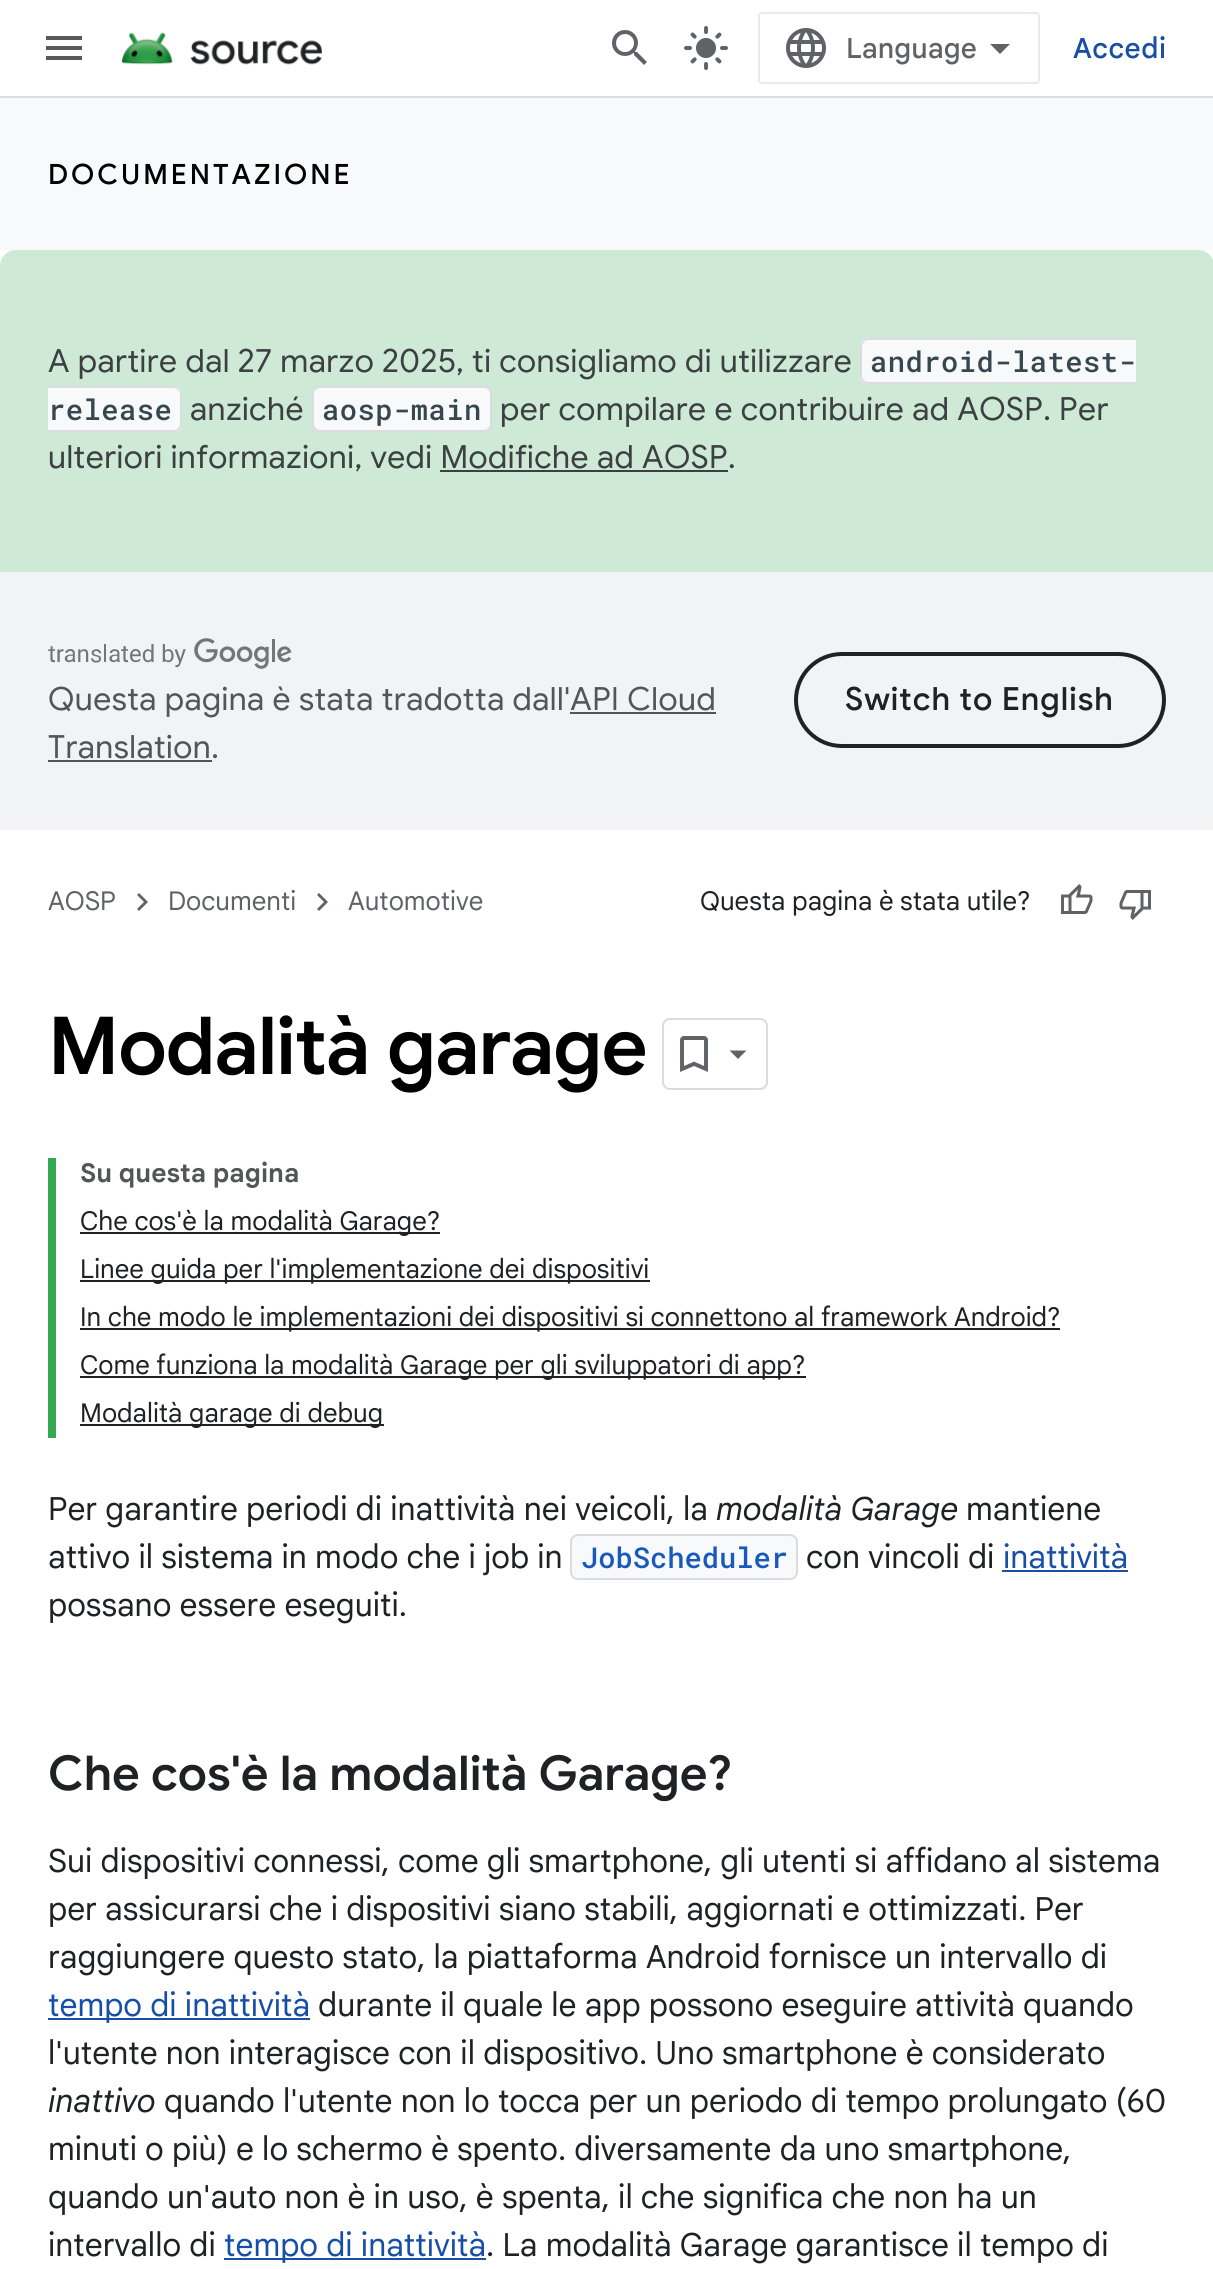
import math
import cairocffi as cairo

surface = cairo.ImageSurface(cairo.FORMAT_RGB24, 1213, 2269)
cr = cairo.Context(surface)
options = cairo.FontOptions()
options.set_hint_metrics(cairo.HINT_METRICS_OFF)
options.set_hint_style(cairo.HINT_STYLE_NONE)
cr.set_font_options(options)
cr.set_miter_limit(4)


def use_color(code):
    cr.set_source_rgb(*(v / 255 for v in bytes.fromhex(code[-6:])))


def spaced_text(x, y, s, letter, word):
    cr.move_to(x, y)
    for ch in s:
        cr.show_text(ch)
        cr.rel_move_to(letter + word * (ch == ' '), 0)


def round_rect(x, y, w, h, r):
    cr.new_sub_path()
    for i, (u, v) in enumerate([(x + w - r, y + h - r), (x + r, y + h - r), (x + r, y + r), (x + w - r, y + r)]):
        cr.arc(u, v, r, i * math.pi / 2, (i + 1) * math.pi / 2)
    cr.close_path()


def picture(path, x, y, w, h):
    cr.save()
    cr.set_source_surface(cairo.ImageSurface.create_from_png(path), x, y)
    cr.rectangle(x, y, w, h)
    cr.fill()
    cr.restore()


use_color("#ffffff")
cr.paint()
use_color("#dadce0")
cr.rectangle(0, 96, 1213, 2)
cr.fill()
use_color("#595959")
cr.new_path()
cr.move_to(46, 36)
cr.line_to(82, 36)
cr.line_to(82, 40)
cr.line_to(46, 40)
cr.close_path()
cr.move_to(46, 50)
cr.line_to(46, 46)
cr.line_to(82, 46)
cr.line_to(82, 50)
cr.close_path()
cr.move_to(46, 60)
cr.line_to(46, 56)
cr.line_to(82, 56)
cr.line_to(82, 60)
cr.close_path()
cr.fill()
picture("img1.png", 121, 32, 201, 33)
picture("img2.png", 612, 30, 35, 35)
picture("img3.png", 684, 26, 44, 44)
round_rect(759, 13, 280, 70, 3)
use_color("#e8eaed")
cr.stroke()
picture("img4.png", 786, 28, 40, 40)
cr.select_font_face("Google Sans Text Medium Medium")
cr.set_font_size(28)
use_color("#5f6368")
cr.move_to(846, 58)
cr.show_text("Language")
cr.new_path()
cr.move_to(1000, 54)
cr.line_to(990, 44)
cr.line_to(1010, 44)
cr.close_path()
cr.fill()
use_color("#174ea6")
spaced_text(1073, 58, "Accedi", 0.5, 0)
use_color("#f8f9fa")
cr.rectangle(0, 98, 1213, 152)
cr.fill()
cr.select_font_face("Google Sans Medium")
use_color("#000000")
spaced_text(48, 184, "DOCUMENTAZIONE", 3, 0)
use_color("#ceead6")
cr.new_path()
cr.move_to(16, 250)
cr.line_to(1198, 250)
cr.curve_to(1207, 250, 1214, 257, 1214, 266)
cr.line_to(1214, 572)
cr.line_to(0, 572)
cr.line_to(0, 266)
cr.curve_to(0, 257, 7, 250, 16, 250)
cr.close_path()
cr.fill()
cr.select_font_face("Google Sans")
cr.set_font_size(32)
use_color("#3c4043")
spaced_text(48, 372, "A partire dal 27 marzo 2025, ti consigliamo di utilizzare", 0.5, 0)
use_color("#f8f9fa")
cr.new_path()
cr.move_to(868, 338)
cr.line_to(1136, 338)
cr.line_to(1136, 384)
cr.line_to(868, 384)
cr.curve_to(863.5, 384, 860, 380.5, 860, 376)
cr.line_to(860, 346)
cr.curve_to(860, 341.5, 863.5, 338, 868, 338)
cr.close_path()
cr.fill()
use_color("#dadce0")
cr.set_fill_rule(cairo.FILL_RULE_EVEN_ODD)
cr.new_path()
cr.move_to(868, 338)
cr.line_to(1136, 338)
cr.line_to(1136, 384)
cr.line_to(868, 384)
cr.curve_to(864, 384, 860, 380, 860, 376)
cr.line_to(860, 346)
cr.curve_to(860, 342, 864, 338, 868, 338)
cr.close_path()
cr.move_to(868, 340)
cr.line_to(1136, 340)
cr.line_to(1136, 382)
cr.line_to(868, 382)
cr.curve_to(865, 382, 862, 379, 862, 376)
cr.line_to(862, 346)
cr.curve_to(862, 343, 865, 340, 868, 340)
cr.close_path()
cr.fill()
cr.select_font_face("Roboto Mono Medium")
cr.set_font_size(28.75)
use_color("#37474f")
spaced_text(870, 372, "android-latest-", 0.5, 0)
use_color("#f8f9fa")
cr.new_path()
cr.move_to(48, 386)
cr.line_to(174, 386)
cr.curve_to(178.5, 386, 182, 389.5, 182, 394)
cr.line_to(182, 424)
cr.curve_to(182, 428.5, 178.5, 432, 174, 432)
cr.line_to(48, 432)
cr.close_path()
cr.fill()
use_color("#dadce0")
cr.new_path()
cr.move_to(48, 386)
cr.line_to(174, 386)
cr.curve_to(178, 386, 182, 390, 182, 394)
cr.line_to(182, 424)
cr.curve_to(182, 428, 178, 432, 174, 432)
cr.line_to(48, 432)
cr.close_path()
cr.move_to(48, 388)
cr.line_to(174, 388)
cr.curve_to(177, 388, 180, 391, 180, 394)
cr.line_to(180, 424)
cr.curve_to(180, 427, 177, 430, 174, 430)
cr.line_to(48, 430)
cr.close_path()
cr.fill()
use_color("#37474f")
spaced_text(48, 420, "release", 0.5, 0)
cr.select_font_face("Google Sans")
cr.set_font_size(32)
use_color("#3c4043")
spaced_text(190, 420, "anziché", 0.5, 0)
use_color("#f8f9fa")
round_rect(313, 387, 178, 44, 7)
cr.fill_preserve()
use_color("#dadce0")
cr.stroke()
cr.select_font_face("Roboto Mono Medium")
cr.set_font_size(28.75)
use_color("#37474f")
spaced_text(322, 420, "aosp-main", 0.5, 0)
cr.select_font_face("Google Sans")
cr.set_font_size(32)
use_color("#3c4043")
spaced_text(500, 420, "per compilare e contribuire ad AOSP. Per", 0.5, 0)
spaced_text(48, 468, "ulteriori informazioni, vedi Modifiche ad AOSP.", 0.5, 0)
cr.rectangle(440, 470, 288, 2)
cr.fill()
use_color("#f1f3f4")
cr.rectangle(0, 572, 1213, 258)
cr.fill()
picture("img5.png", 48, 638, 244, 31)
use_color("#545555")
spaced_text(48, 710, "Questa pagina è stata tradotta dall'API Cloud", 0.5, 0)
spaced_text(48, 758, "Translation.", 0.5, 0)
cr.rectangle(570, 712, 146, 2)
cr.fill()
cr.rectangle(48, 760, 164, 2)
cr.fill()
round_rect(796, 654, 368, 92, 46)
use_color("#202124")
cr.set_line_width(4)
cr.stroke()
cr.select_font_face("Google Sans Medium")
spaced_text(845, 710, "Switch to English", 1, 0)
cr.select_font_face("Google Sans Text")
cr.set_font_size(26)
use_color("#5f6368")
cr.move_to(48, 910)
cr.show_text("AOSP")
cr.set_fill_rule(cairo.FILL_RULE_WINDING)
cr.new_path()
cr.move_to(139, 893)
cr.line_to(148, 902)
cr.line_to(139, 911)
cr.line_to(137, 909)
cr.line_to(144, 902)
cr.line_to(137, 895)
cr.close_path()
cr.fill()
cr.move_to(168, 910)
cr.show_text("Documenti")
cr.new_path()
cr.move_to(319, 893)
cr.line_to(328, 902)
cr.line_to(319, 911)
cr.line_to(317, 909)
cr.line_to(324, 902)
cr.line_to(317, 895)
cr.close_path()
cr.fill()
cr.move_to(348, 910)
cr.show_text("Automotive")
use_color("#202124")
cr.move_to(700, 910)
cr.show_text("Questa pagina è stata utile?")
picture("img6.png", 1061, 884, 32, 30)
picture("img7.png", 1119, 890, 32, 30)
cr.select_font_face("Google Sans SemiBold")
cr.set_font_size(80)
use_color("#000000")
spaced_text(48, 1074, "Modalità garage", -1, 0)
round_rect(663, 1019, 104, 70, 7)
use_color("#dadce0")
cr.set_line_width(2)
cr.stroke()
picture("img8.png", 680, 1036, 28, 36)
use_color("#5f6368")
cr.new_path()
cr.move_to(729.5, 1050.5)
cr.line_to(746.5, 1050.5)
cr.line_to(738, 1059)
cr.close_path()
cr.fill()
use_color("#34a853")
cr.rectangle(48, 1158, 8, 280)
cr.fill()
cr.select_font_face("Google Sans Text", cairo.FONT_SLANT_NORMAL, cairo.FONT_WEIGHT_BOLD)
cr.set_font_size(26)
use_color("#545555")
cr.move_to(80, 1182)
cr.show_text("Su questa pagina")
use_color("#202124")
cr.rectangle(80, 1232, 360, 2)
cr.fill()
cr.select_font_face("Google Sans Text")
cr.move_to(80, 1230)
cr.show_text("Che cos'è la modalità Garage?")
cr.rectangle(80, 1280, 570, 2)
cr.fill()
cr.move_to(80, 1278)
cr.show_text("Linee guida per l'implementazione dei dispositivi")
cr.rectangle(80, 1328, 980, 2)
cr.fill()
cr.move_to(80, 1326)
cr.show_text("In che modo le implementazioni dei dispositivi si connettono al framework Android?")
cr.rectangle(80, 1376, 726, 2)
cr.fill()
cr.move_to(80, 1374)
cr.show_text("Come funziona la modalità Garage per gli sviluppatori di app?")
cr.rectangle(80, 1424, 304, 2)
cr.fill()
cr.move_to(80, 1422)
cr.show_text("Modalità garage di debug")
cr.set_font_size(32)
cr.move_to(48, 1520)
cr.show_text("Per garantire periodi di inattività nei veicoli, la")
cr.select_font_face("Google Sans Text", cairo.FONT_SLANT_ITALIC)
cr.move_to(716, 1520)
cr.show_text("modalità Garage")
cr.select_font_face("Google Sans Text")
cr.move_to(966, 1520)
cr.show_text("mantiene")
cr.move_to(48, 1568)
cr.show_text("attivo il sistema in modo che i job in")
use_color("#f8f9fa")
round_rect(571, 1535, 226, 44, 7)
cr.fill_preserve()
use_color("#dadce0")
cr.stroke()
cr.select_font_face("Roboto Mono Medium")
cr.set_font_size(28.75)
use_color("#185abc")
cr.move_to(581, 1568)
cr.show_text("JobScheduler")
cr.select_font_face("Google Sans Text")
cr.set_font_size(32)
use_color("#202124")
cr.move_to(806, 1568)
cr.show_text("con vincoli di")
use_color("#174ea6")
cr.move_to(1003, 1568)
cr.show_text("inattività")
cr.rectangle(1002, 1570, 126, 2)
cr.fill()
use_color("#202124")
cr.move_to(48, 1616)
cr.show_text("possano essere eseguiti.")
cr.select_font_face("Google Sans SemiBold")
cr.set_font_size(48)
cr.move_to(48, 1790)
cr.show_text("Che cos'è la modalità Garage?")
cr.select_font_face("Google Sans Text")
cr.set_font_size(32)
cr.move_to(48, 1872)
cr.show_text("Sui dispositivi connessi, come gli smartphone, gli utenti si affidano al sistema")
cr.move_to(48, 1920)
cr.show_text("per assicurarsi che i dispositivi siano stabili, aggiornati e ottimizzati. Per")
cr.move_to(48, 1968)
cr.show_text("raggiungere questo stato, la piattaforma Android fornisce un intervallo di")
use_color("#174ea6")
cr.rectangle(48, 2018, 262, 2)
cr.fill()
cr.move_to(48, 2016)
cr.show_text("tempo di inattività")
use_color("#202124")
cr.move_to(318, 2016)
cr.show_text("durante il quale le app possono eseguire attività quando")
cr.move_to(48, 2064)
cr.show_text("l'utente non interagisce con il dispositivo. Uno smartphone è considerato")
cr.select_font_face("Google Sans Text", cairo.FONT_SLANT_ITALIC)
cr.move_to(48, 2112)
cr.show_text("inattivo")
cr.select_font_face("Google Sans Text")
cr.move_to(164, 2112)
cr.show_text("quando l'utente non lo tocca per un periodo di tempo prolungato (60")
cr.move_to(48, 2160)
cr.show_text("minuti o più) e lo schermo è spento. diversamente da uno smartphone,")
cr.move_to(48, 2208)
cr.show_text("quando un'auto non è in uso, è spenta, il che significa che non ha un")
cr.move_to(48, 2256)
cr.show_text("intervallo di")
use_color("#174ea6")
cr.rectangle(224, 2258, 262, 2)
cr.fill()
cr.move_to(224, 2256)
cr.show_text("tempo di inattività")
use_color("#202124")
cr.move_to(486, 2256)
cr.show_text(". La modalità Garage garantisce il tempo di")
surface.write_to_png("result.png")
